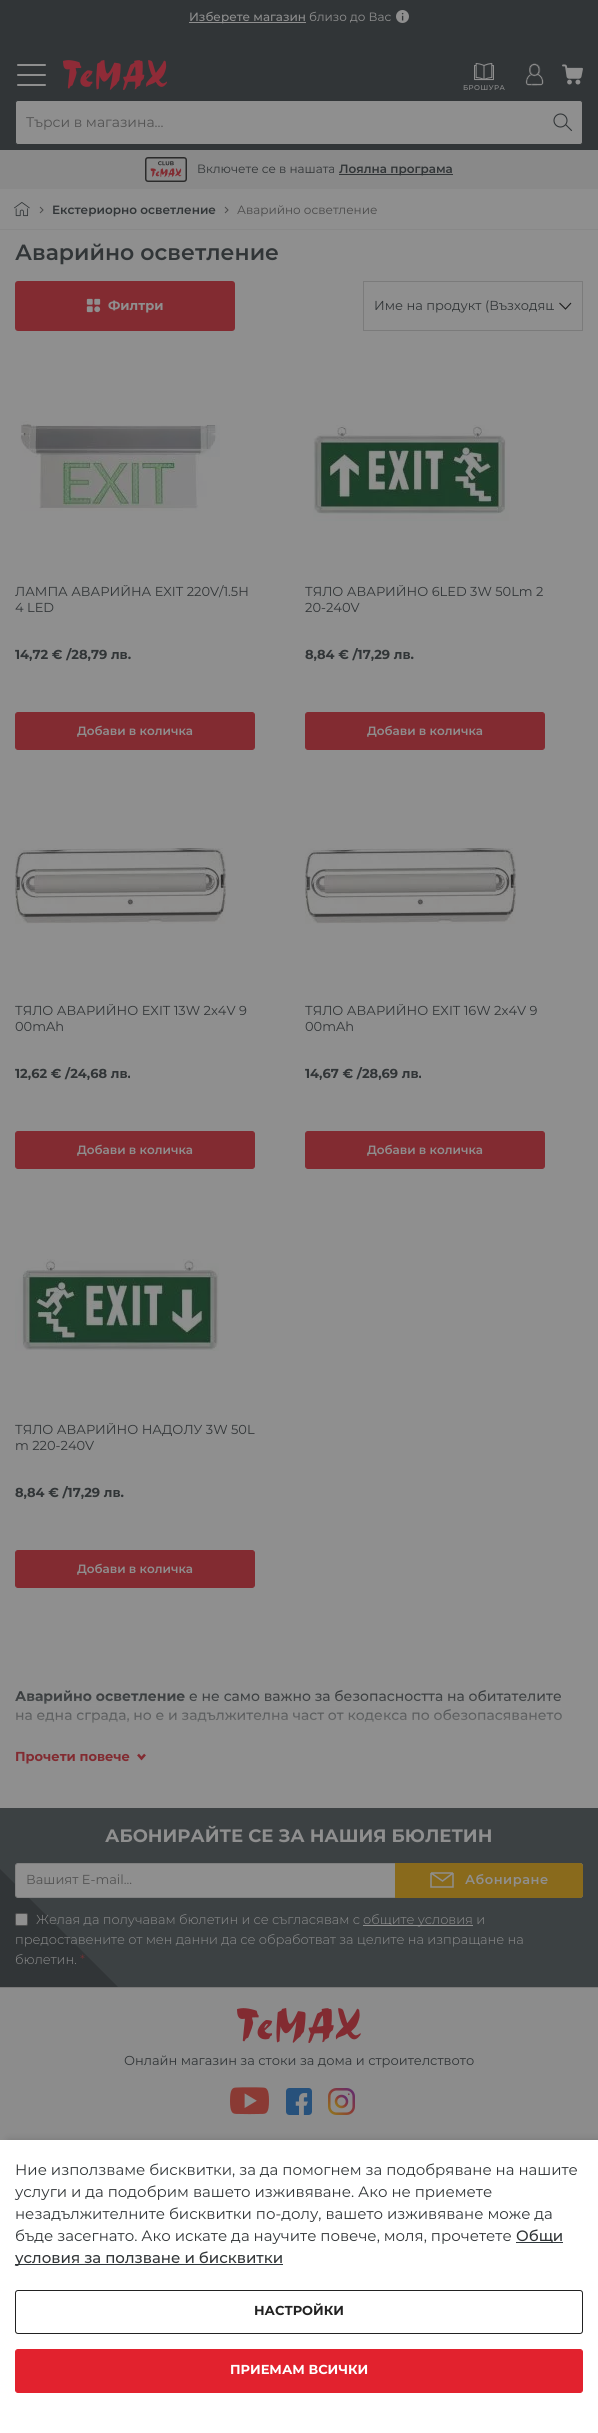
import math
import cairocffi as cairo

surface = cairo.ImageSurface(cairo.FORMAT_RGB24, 598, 2433)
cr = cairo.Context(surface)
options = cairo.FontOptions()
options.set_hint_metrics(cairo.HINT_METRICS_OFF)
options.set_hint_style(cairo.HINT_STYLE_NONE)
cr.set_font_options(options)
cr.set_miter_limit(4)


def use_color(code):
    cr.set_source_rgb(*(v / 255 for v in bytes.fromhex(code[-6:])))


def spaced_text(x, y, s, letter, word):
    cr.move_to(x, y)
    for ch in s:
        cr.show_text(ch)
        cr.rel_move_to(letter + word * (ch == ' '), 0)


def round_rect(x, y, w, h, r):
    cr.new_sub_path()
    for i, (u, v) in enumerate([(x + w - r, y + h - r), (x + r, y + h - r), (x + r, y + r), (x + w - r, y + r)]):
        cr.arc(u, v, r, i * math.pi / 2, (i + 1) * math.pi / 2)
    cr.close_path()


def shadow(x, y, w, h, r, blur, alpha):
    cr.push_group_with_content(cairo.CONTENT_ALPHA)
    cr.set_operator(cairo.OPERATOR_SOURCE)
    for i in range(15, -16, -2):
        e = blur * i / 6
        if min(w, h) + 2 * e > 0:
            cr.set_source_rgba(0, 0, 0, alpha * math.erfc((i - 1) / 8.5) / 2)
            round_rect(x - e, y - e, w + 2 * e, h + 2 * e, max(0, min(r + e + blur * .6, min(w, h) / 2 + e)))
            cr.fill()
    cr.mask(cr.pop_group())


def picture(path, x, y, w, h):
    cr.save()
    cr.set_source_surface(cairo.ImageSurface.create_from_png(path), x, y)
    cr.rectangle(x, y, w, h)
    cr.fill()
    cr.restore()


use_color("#8f8f8f")
cr.paint()
use_color("#313537")
cr.rectangle(0, 0, 598, 150)
cr.fill()
use_color("#8f8f8f")
cr.rectangle(189, 22, 117, 1)
cr.fill()
cr.select_font_face("Montserrat Medium")
cr.set_font_size(12)
cr.move_to(189, 21)
cr.show_text("Изберете магазин")
cr.select_font_face("Montserrat")
cr.move_to(309, 21)
cr.show_text("близо до Вас")
picture("img1.png", 396, 10, 13, 13)
round_rect(17, 64, 29, 2, 1)
cr.fill()
round_rect(17, 74, 29, 2, 1)
cr.fill()
round_rect(17, 84, 29, 2, 1)
cr.fill()
picture("img2.png", 63, 60, 104, 30)
picture("img3.png", 562, 64, 21, 21)
picture("img4.png", 474, 63, 20, 18)
cr.select_font_face("Montserrat Medium")
cr.set_font_size(7)
spaced_text(463, 90, "БРОШУРА", 0.5, 0)
picture("img5.png", 525, 63, 19, 23)
round_rect(15.5, 100.5, 567, 44, 2.5)
cr.fill_preserve()
use_color("#313537")
cr.set_line_width(1)
cr.stroke()
cr.select_font_face("Montserrat")
cr.set_font_size(14)
use_color("#525252")
cr.move_to(26, 127)
cr.show_text("Търси в магазина...")
cr.new_path()
cr.arc(560.5, 120.5, 6.5, 0, 2 * math.pi)
use_color("#313537")
cr.set_line_width(1.1)
cr.stroke()
cr.new_path()
cr.move_to(566, 125)
cr.line_to(571.5, 130.5)
cr.set_line_cap(cairo.LINE_CAP_ROUND)
cr.stroke()
use_color("#898989")
cr.rectangle(0, 150, 598, 39)
cr.fill()
picture("img6.png", 145, 157, 42, 25)
cr.set_font_size(12)
use_color("#313537")
cr.move_to(197, 173)
cr.show_text("Включете се в нашата")
cr.rectangle(339, 174, 114, 1)
cr.fill()
cr.select_font_face("Montserrat SemiBold")
cr.move_to(339, 173)
cr.show_text("Лоялна програма")
use_color("#888888")
cr.rectangle(0, 229, 598, 1)
cr.fill()
picture("img7.png", 14, 202, 16, 15)
cr.new_path()
cr.move_to(40, 207)
cr.line_to(43, 210)
cr.line_to(40, 213)
use_color("#4a4a4a")
cr.set_line_width(1)
cr.set_line_cap(cairo.LINE_CAP_BUTT)
cr.stroke()
use_color("#313537")
cr.move_to(52, 214)
cr.show_text("Екстериорно осветление")
cr.new_path()
cr.move_to(225, 207)
cr.line_to(228, 210)
cr.line_to(225, 213)
use_color("#4a4a4a")
cr.stroke()
cr.select_font_face("Montserrat")
cr.move_to(237, 214)
cr.show_text("Аварийно осветление")
cr.select_font_face("Montserrat SemiBold")
cr.set_font_size(22)
use_color("#313537")
cr.move_to(15, 260)
cr.show_text("Аварийно осветление")
use_color("#822b31")
round_rect(15, 281, 220, 50, 3)
cr.fill()
picture("img8.png", 86, 298, 15, 15)
cr.select_font_face("Montserrat", cairo.FONT_SLANT_NORMAL, cairo.FONT_WEIGHT_BOLD)
cr.set_font_size(13)
use_color("#8f8f8f")
cr.move_to(108, 310)
cr.show_text("Филтри")
cr.new_path()
cr.move_to(559.5, 303)
cr.line_to(565.5, 309)
cr.line_to(571, 303)
use_color("#1c1c1c")
cr.set_line_width(1.1)
cr.stroke()
cr.rectangle(363.5, 281.5, 219, 49)
use_color("#7b7b7b")
cr.set_line_width(1)
cr.stroke()
cr.save()
cr.rectangle(374, 282, 180, 50)
cr.clip()
cr.select_font_face("Montserrat")
use_color("#313537")
cr.move_to(374, 310)
cr.show_text("Име на продукт (Възходящ")
cr.restore()
picture("img9.png", 20, 421, 200, 90)
cr.save()
cr.rectangle(15, 585, 240, 33)
cr.clip()
cr.select_font_face("Montserrat")
use_color("#313537")
cr.move_to(15, 596)
cr.show_text("ЛАМПА АВАРИЙНА EXIT 220V/1.5H")
cr.restore()
cr.select_font_face("Montserrat")
use_color("#313537")
cr.move_to(15, 612)
cr.show_text("4 LED")
cr.select_font_face("Montserrat", cairo.FONT_SLANT_NORMAL, cairo.FONT_WEIGHT_BOLD)
cr.move_to(15, 659)
cr.show_text("14,72 € /28,79 лв.")
use_color("#822b31")
round_rect(15.5, 712.5, 239, 37, 2.5)
cr.fill_preserve()
cr.stroke()
cr.select_font_face("Montserrat SemiBold")
cr.set_font_size(12)
use_color("#8f8f8f")
cr.move_to(77, 735)
cr.show_text("Добави в количка")
picture("img10.png", 313, 425, 197, 96)
cr.save()
cr.rectangle(305, 585, 240, 33)
cr.clip()
cr.select_font_face("Montserrat")
cr.set_font_size(13)
use_color("#313537")
cr.move_to(305, 596)
cr.show_text("ТЯЛО АВАРИЙНО 6LED 3W 50Lm 2")
cr.restore()
cr.select_font_face("Montserrat")
cr.set_font_size(13)
use_color("#313537")
cr.move_to(305, 612)
cr.show_text("20-240V")
cr.select_font_face("Montserrat", cairo.FONT_SLANT_NORMAL, cairo.FONT_WEIGHT_BOLD)
cr.move_to(305, 659)
cr.show_text("8,84 € /17,29 лв.")
use_color("#822b31")
round_rect(305.5, 712.5, 239, 37, 2.5)
cr.fill_preserve()
cr.stroke()
cr.select_font_face("Montserrat SemiBold")
cr.set_font_size(12)
use_color("#8f8f8f")
cr.move_to(367, 735)
cr.show_text("Добави в количка")
picture("img11.png", 15, 848, 211, 76)
cr.save()
cr.rectangle(15, 1004, 240, 33)
cr.clip()
cr.select_font_face("Montserrat")
cr.set_font_size(13)
use_color("#313537")
cr.move_to(15, 1015)
cr.show_text("ТЯЛО АВАРИЙНО EXIT 13W 2x4V 9")
cr.restore()
cr.select_font_face("Montserrat")
cr.set_font_size(13)
use_color("#313537")
cr.move_to(15, 1031)
cr.show_text("00mAh")
cr.select_font_face("Montserrat", cairo.FONT_SLANT_NORMAL, cairo.FONT_WEIGHT_BOLD)
cr.move_to(15, 1078)
cr.show_text("12,62 € /24,68 лв.")
use_color("#822b31")
round_rect(15.5, 1131.5, 239, 37, 2.5)
cr.fill_preserve()
cr.stroke()
cr.select_font_face("Montserrat SemiBold")
cr.set_font_size(12)
use_color("#8f8f8f")
cr.move_to(77, 1154)
cr.show_text("Добави в количка")
picture("img11.png", 305, 848, 211, 76)
cr.save()
cr.rectangle(305, 1004, 240, 33)
cr.clip()
cr.select_font_face("Montserrat")
cr.set_font_size(13)
use_color("#313537")
cr.move_to(305, 1015)
cr.show_text("ТЯЛО АВАРИЙНО EXIT 16W 2x4V 9")
cr.restore()
cr.select_font_face("Montserrat")
cr.set_font_size(13)
use_color("#313537")
cr.move_to(305, 1031)
cr.show_text("00mAh")
cr.select_font_face("Montserrat", cairo.FONT_SLANT_NORMAL, cairo.FONT_WEIGHT_BOLD)
cr.move_to(305, 1078)
cr.show_text("14,67 € /28,69 лв.")
use_color("#822b31")
round_rect(305.5, 1131.5, 239, 37, 2.5)
cr.fill_preserve()
cr.stroke()
cr.select_font_face("Montserrat SemiBold")
cr.set_font_size(12)
use_color("#8f8f8f")
cr.move_to(367, 1154)
cr.show_text("Добави в количка")
picture("img12.png", 15, 1259, 204, 92)
cr.save()
cr.rectangle(15, 1423, 240, 33)
cr.clip()
cr.select_font_face("Montserrat")
cr.set_font_size(13)
use_color("#313537")
cr.move_to(15, 1434)
cr.show_text("ТЯЛО АВАРИЙНО НАДОЛУ 3W 50L")
cr.restore()
cr.select_font_face("Montserrat")
cr.set_font_size(13)
use_color("#313537")
cr.move_to(15, 1450)
cr.show_text("m 220-240V")
cr.select_font_face("Montserrat", cairo.FONT_SLANT_NORMAL, cairo.FONT_WEIGHT_BOLD)
cr.move_to(15, 1497)
cr.show_text("8,84 € /17,29 лв.")
use_color("#822b31")
round_rect(15.5, 1550.5, 239, 37, 2.5)
cr.fill_preserve()
cr.stroke()
cr.select_font_face("Montserrat SemiBold")
cr.set_font_size(12)
use_color("#8f8f8f")
cr.move_to(77, 1573)
cr.show_text("Добави в количка")
cr.select_font_face("Montserrat", cairo.FONT_SLANT_NORMAL, cairo.FONT_WEIGHT_BOLD)
cr.set_font_size(14)
use_color("#313537")
cr.move_to(15, 1701)
cr.show_text("Аварийно осветление")
cr.select_font_face("Montserrat Medium")
cr.move_to(189, 1701)
cr.show_text("е не само важно за безопасността на обитателите")
cr.move_to(15, 1720)
cr.show_text("на една сграда, но е и задължителна част от кодекса по обезопасяването")
gradient = cairo.LinearGradient(299, 1768, 299, 1688)
gradient.add_color_stop_rgba(0.28, 0.561, 0.561, 0.561, 1)
gradient.add_color_stop_rgba(0.98, 0.561, 0.561, 0.561, 0)
cr.set_source(gradient)
cr.rectangle(15, 1691, 547, 32)
cr.fill()
cr.select_font_face("Montserrat", cairo.FONT_SLANT_NORMAL, cairo.FONT_WEIGHT_BOLD)
cr.set_font_size(13)
use_color("#822b31")
cr.move_to(15, 1761)
cr.show_text("Прочети повече")
cr.new_path()
cr.move_to(145, 1754.5)
cr.line_to(141.5, 1758.5)
cr.line_to(138, 1754.5)
cr.set_line_width(2.5)
cr.stroke()
use_color("#8c8c8c")
cr.rectangle(0, 1988, 598, 152)
cr.fill()
use_color("#313537")
cr.rectangle(0, 1869, 118, 118)
cr.fill()
use_color("#3c4143")
cr.new_path()
cr.move_to(118, 1808)
cr.line_to(118, 1987)
cr.line_to(-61, 1808)
cr.close_path()
cr.fill()
cr.rectangle(118, 1808, 480, 179)
cr.fill()
cr.set_font_size(18)
use_color("#8f8f8f")
cr.move_to(105, 1842)
cr.show_text("АБОНИРАЙТЕ СЕ ЗА НАШИЯ БЮЛЕТИН")
round_rect(15.5, 1863.5, 567, 34, 2.5)
cr.fill_preserve()
use_color("#818181")
cr.set_line_width(1)
cr.stroke()
cr.select_font_face("Montserrat")
cr.set_font_size(13)
use_color("#525252")
cr.move_to(26, 1884)
cr.show_text("Вашият E-mail...")
use_color("#896a1c")
cr.new_path()
cr.move_to(395, 1863)
cr.line_to(580, 1863)
cr.curve_to(581.5, 1863, 583, 1864.5, 583, 1866)
cr.line_to(583, 1895)
cr.curve_to(583, 1896.5, 581.5, 1898, 580, 1898)
cr.line_to(395, 1898)
cr.close_path()
cr.fill()
cr.new_path()
cr.move_to(431, 1873)
cr.line_to(431, 1887)
cr.line_to(453, 1887)
cr.line_to(453, 1873)
cr.move_to(431, 1873)
cr.line_to(453, 1873)
cr.move_to(431, 1873)
cr.line_to(442.5, 1881)
cr.line_to(453, 1873)
use_color("#8f8f8f")
cr.set_line_width(1.5)
cr.stroke()
cr.select_font_face("Montserrat SemiBold")
spaced_text(465, 1884, "Абониране", 0.5, 0)
round_rect(15.5, 1913.5, 12, 12, 1.5)
cr.fill_preserve()
use_color("#515151")
cr.set_line_width(1)
cr.stroke()
cr.select_font_face("Montserrat Light")
use_color("#8f8f8f")
cr.move_to(36, 1924)
cr.show_text("Желая да получавам бюлетин и се съгласявам с")
cr.rectangle(363, 1925, 110, 1)
cr.fill()
cr.move_to(363, 1924)
cr.show_text("общите условия и")
cr.move_to(15, 1944)
cr.show_text("предоставените от мен данни да се обработват за целите на изпращане на")
cr.move_to(15, 1964)
cr.show_text("бюлетин.")
use_color("#783133")
cr.move_to(80, 1964)
cr.show_text("*")
use_color("#797979")
cr.rectangle(0, 1987, 598, 1)
cr.fill()
picture("img13.png", 237, 2008, 124, 35)
cr.select_font_face("Montserrat")
use_color("#313537")
cr.move_to(124, 2065)
cr.show_text("Онлайн магазин за стоки за дома и строителството")
picture("img14.png", 230, 2087, 39, 28)
picture("img15.png", 286, 2088, 26, 27)
picture("img16.png", 328, 2088, 27, 27)
use_color("#000000")
shadow(8, 2140, 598, 293, 0, 4, 0.15)
use_color("#ffffff")
cr.rectangle(0, 2140, 598, 293)
cr.fill()
cr.set_font_size(15)
use_color("#313537")
cr.move_to(15, 2175)
cr.show_text("Ние използваме бисквитки, за да помогнем за подобряване на нашите")
cr.move_to(15, 2197)
cr.show_text("услуги и да подобрим вашето изживяване. Ако не приемете")
cr.move_to(15, 2219)
cr.show_text("незадължителните бисквитки по-долу, вашето изживяване може да")
cr.move_to(15, 2241)
cr.show_text("бъде засегнато. Ако искате да научите повече, моля, прочетете")
use_color("#2f373c")
cr.rectangle(516, 2242, 47, 1)
cr.fill()
cr.select_font_face("Montserrat Medium")
use_color("#313537")
cr.move_to(516, 2241)
cr.show_text("Общи")
use_color("#2f373c")
cr.rectangle(15, 2264, 268, 1)
cr.fill()
use_color("#313537")
cr.move_to(15, 2263)
cr.show_text("условия за ползване и бисквитки")
round_rect(15.5, 2290.5, 567, 43, 2.5)
use_color("#222222")
cr.stroke()
cr.select_font_face("Montserrat", cairo.FONT_SLANT_NORMAL, cairo.FONT_WEIGHT_BOLD)
cr.set_font_size(13)
cr.move_to(254, 2315)
cr.show_text("НАСТРОЙКИ")
use_color("#e2222e")
round_rect(15.5, 2349.5, 567, 43, 2.5)
cr.fill_preserve()
cr.stroke()
use_color("#ffffff")
cr.move_to(230, 2374)
cr.show_text("ПРИЕМАМ ВСИЧКИ")
surface.write_to_png("result.png")
